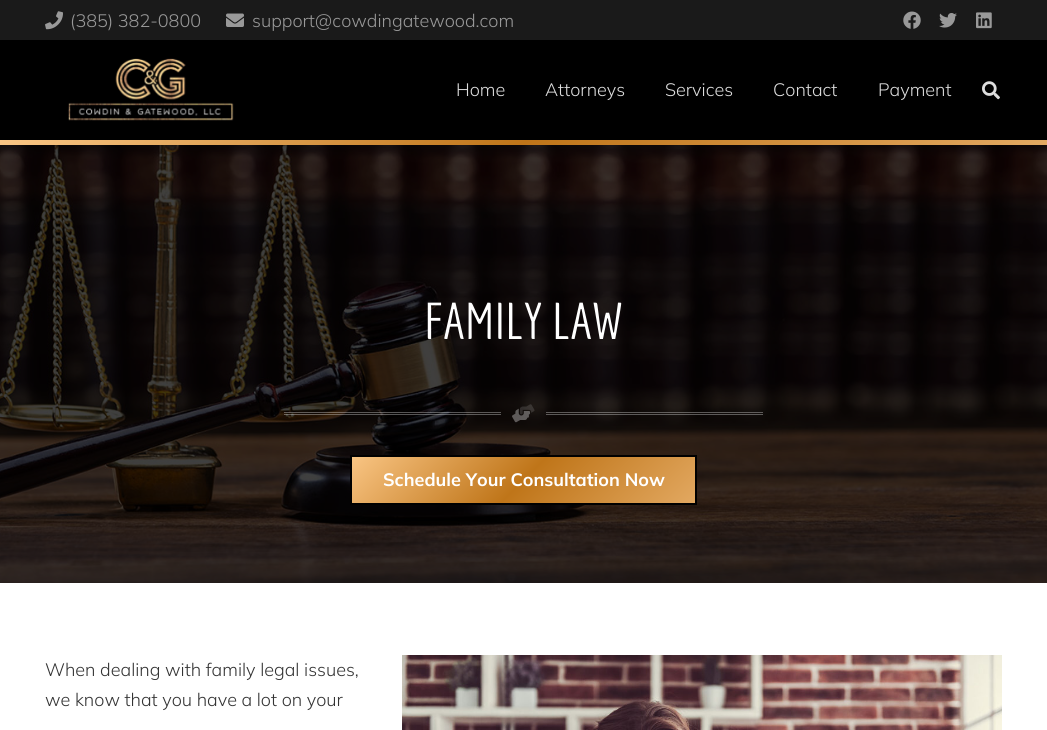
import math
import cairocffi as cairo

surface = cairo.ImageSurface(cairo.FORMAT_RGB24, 1047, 730)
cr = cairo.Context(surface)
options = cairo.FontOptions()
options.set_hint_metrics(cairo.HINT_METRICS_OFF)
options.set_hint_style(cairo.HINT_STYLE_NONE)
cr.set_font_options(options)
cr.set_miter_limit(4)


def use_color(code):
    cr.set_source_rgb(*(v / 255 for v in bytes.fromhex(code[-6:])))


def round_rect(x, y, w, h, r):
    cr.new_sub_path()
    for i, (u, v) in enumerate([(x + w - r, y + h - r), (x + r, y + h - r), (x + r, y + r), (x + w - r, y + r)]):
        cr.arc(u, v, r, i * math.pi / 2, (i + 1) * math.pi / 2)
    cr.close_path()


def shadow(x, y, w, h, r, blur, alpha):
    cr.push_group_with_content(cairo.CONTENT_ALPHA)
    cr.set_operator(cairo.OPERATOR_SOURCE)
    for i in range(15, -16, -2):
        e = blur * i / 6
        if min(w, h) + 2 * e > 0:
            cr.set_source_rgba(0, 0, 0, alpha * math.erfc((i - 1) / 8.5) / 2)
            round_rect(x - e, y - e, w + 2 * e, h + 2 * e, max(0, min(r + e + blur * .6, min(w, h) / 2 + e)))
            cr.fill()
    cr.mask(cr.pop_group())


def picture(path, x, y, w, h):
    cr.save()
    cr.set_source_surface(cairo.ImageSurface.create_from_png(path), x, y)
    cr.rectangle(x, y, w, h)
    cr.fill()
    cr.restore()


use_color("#ffffff")
cr.paint()
use_color("#1a1a1a")
cr.rectangle(0, 0, 1047, 40)
cr.fill()
picture("img1.png", 45, 11, 18, 19)
cr.select_font_face("Mulish Light")
cr.set_font_size(18)
use_color("#999999")
cr.move_to(70, 27)
cr.show_text("(385) 382-0800")
picture("img2.png", 226, 13, 18, 14)
cr.move_to(252, 27)
cr.show_text("support@cowdingatewood.com")
picture("img3.png", 903, 11, 18, 18)
picture("img4.png", 939, 13, 18, 15)
picture("img5.png", 976, 12, 16, 17)
use_color("#000000")
cr.rectangle(0, 40, 1047, 100)
cr.fill()
picture("img6.png", 68, 58, 166, 63)
use_color("#dddddd")
cr.move_to(456, 96)
cr.show_text("Home")
cr.move_to(545, 96)
cr.show_text("Attorneys")
cr.move_to(665, 96)
cr.show_text("Services")
cr.move_to(773, 96)
cr.show_text("Contact")
cr.move_to(878, 96)
cr.show_text("Payment")
picture("img7.png", 982, 81, 18, 19)
picture("img8.png", 0, 145, 1047, 438)
use_color("#000000")
shadow(1, 143, 1045, 3, 0, 0.5, 0.05)
shadow(1, 144, 1045, 3, 0, 2.5, 0.1)
gradient = cairo.LinearGradient(260, -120, 787, 406)
gradient.add_color_stop_rgba(0, 0.98, 0.776, 0.522, 1)
gradient.add_color_stop_rgba(0.5, 0.749, 0.459, 0.098, 1)
gradient.add_color_stop_rgba(1, 0.89, 0.663, 0.384, 1)
cr.set_source(gradient)
cr.rectangle(0, 140, 1047, 5)
cr.fill()
cr.select_font_face("Economica")
cr.set_font_size(50.5)
use_color("#ffffff")
cr.move_to(424, 339)
cr.show_text("FAMILY LAW")
cr.set_source_rgba(1, 1, 1, 0.33)
cr.rectangle(284, 412, 217, 1)
cr.fill()
cr.rectangle(284, 414, 217, 1)
cr.fill()
picture("img10.png", 512, 408, 18, 15)
picture("img9.png", 520, 404, 15, 11)
cr.rectangle(546, 412, 217, 1)
cr.fill()
cr.rectangle(546, 414, 217, 1)
cr.fill()
gradient = cairo.LinearGradient(424, 381, 623, 579)
gradient.add_color_stop_rgba(0, 0.98, 0.776, 0.522, 1)
gradient.add_color_stop_rgba(0.5, 0.749, 0.459, 0.098, 1)
gradient.add_color_stop_rgba(1, 0.89, 0.663, 0.384, 1)
cr.set_source(gradient)
cr.rectangle(352, 457, 343, 46)
cr.fill()
cr.rectangle(351, 456, 345, 48)
use_color("#000000")
cr.stroke()
cr.select_font_face("Mulish", cairo.FONT_SLANT_NORMAL, cairo.FONT_WEIGHT_BOLD)
cr.set_font_size(18)
use_color("#ffffff")
cr.move_to(383, 486)
cr.show_text("Schedule Your Consultation Now")
cr.select_font_face("Mulish Light")
use_color("#333333")
cr.move_to(45, 676)
cr.show_text("When dealing with family legal issues,")
picture("img11.png", 402, 655, 600, 75)
cr.move_to(45, 706)
cr.show_text("we know that you have a lot on your")
surface.write_to_png("result.png")
